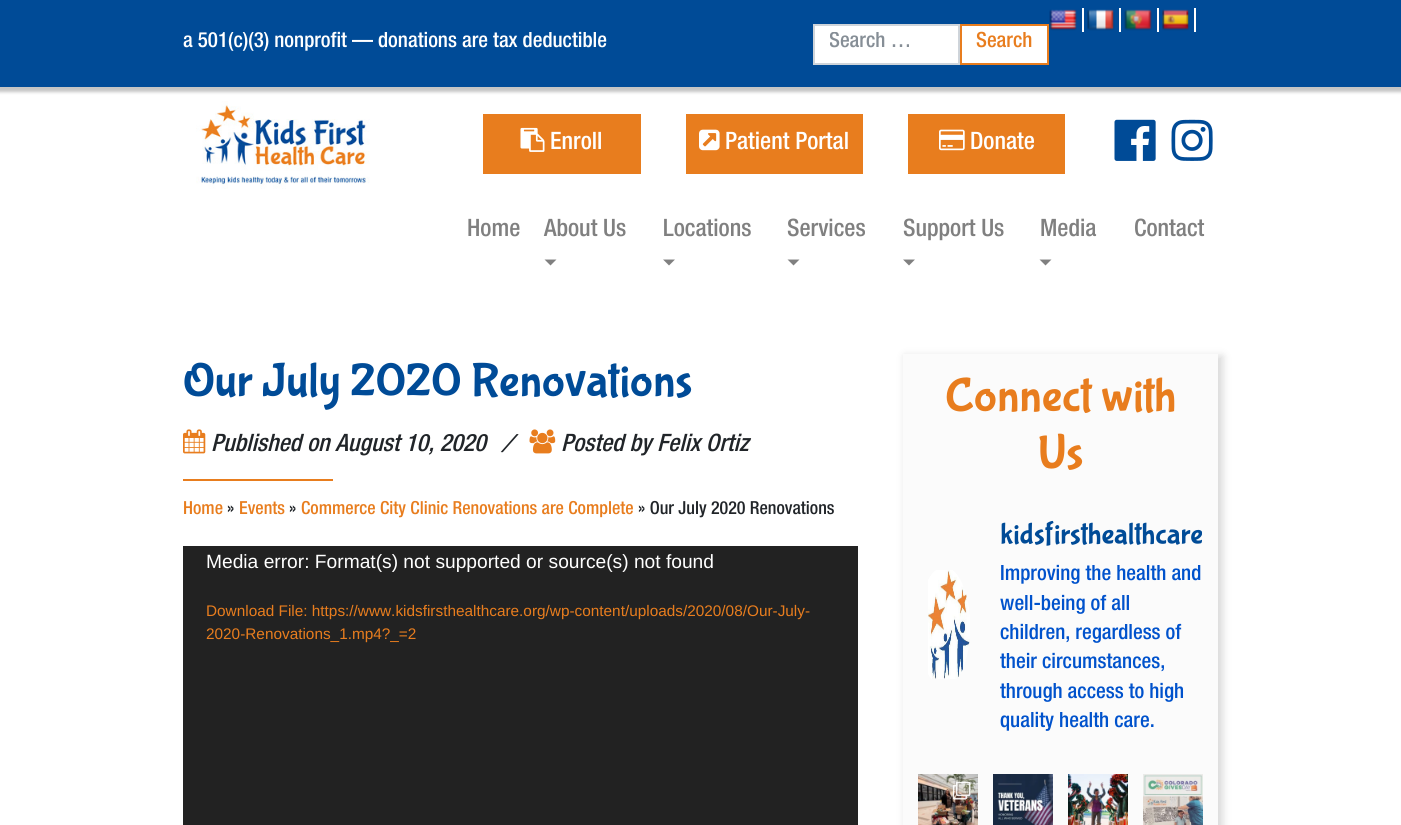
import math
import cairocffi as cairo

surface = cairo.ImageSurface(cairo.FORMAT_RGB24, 1401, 825)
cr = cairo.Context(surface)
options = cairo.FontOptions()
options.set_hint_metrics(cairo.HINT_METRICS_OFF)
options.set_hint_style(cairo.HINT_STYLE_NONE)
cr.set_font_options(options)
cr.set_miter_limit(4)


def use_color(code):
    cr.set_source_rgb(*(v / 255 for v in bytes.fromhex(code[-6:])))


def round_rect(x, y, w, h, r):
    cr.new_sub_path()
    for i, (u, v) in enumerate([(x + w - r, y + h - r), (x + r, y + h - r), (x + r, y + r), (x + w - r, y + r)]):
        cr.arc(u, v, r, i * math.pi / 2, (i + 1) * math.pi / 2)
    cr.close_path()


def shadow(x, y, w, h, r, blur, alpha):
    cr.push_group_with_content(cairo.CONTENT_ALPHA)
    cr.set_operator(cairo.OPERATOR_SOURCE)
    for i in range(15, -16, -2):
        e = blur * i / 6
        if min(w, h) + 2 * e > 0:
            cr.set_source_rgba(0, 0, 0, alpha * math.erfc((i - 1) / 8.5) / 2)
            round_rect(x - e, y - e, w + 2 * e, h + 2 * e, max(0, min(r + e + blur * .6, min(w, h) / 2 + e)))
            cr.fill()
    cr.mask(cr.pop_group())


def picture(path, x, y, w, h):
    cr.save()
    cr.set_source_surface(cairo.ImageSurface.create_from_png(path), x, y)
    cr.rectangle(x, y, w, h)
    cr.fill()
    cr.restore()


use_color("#ffffff")
cr.paint()
use_color("#c5c5c5")
shadow(-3, -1, 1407, 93, 0, 1.5, 1)
use_color("#004b97")
cr.rectangle(0, 0, 1401, 87)
cr.fill()
cr.select_font_face("Helvetica Neue Medium")
cr.set_font_size(21)
use_color("#ffffff")
cr.move_to(183, 47)
cr.show_text("a 501(c)(3) nonprofit — donations are tax deductible")
picture("img1.png", 1049, 9, 28, 22)
cr.rectangle(1082, 8, 2, 24)
cr.fill()
picture("img2.png", 1087, 9, 28, 22)
cr.rectangle(1119, 8, 2, 24)
cr.fill()
picture("img3.png", 1124, 9, 28, 22)
cr.rectangle(1157, 8, 2, 24)
cr.fill()
picture("img4.png", 1162, 9, 28, 22)
cr.rectangle(1194, 8, 2, 24)
cr.fill()
cr.rectangle(814, 25, 145, 39)
cr.fill_preserve()
use_color("#ced4da")
cr.stroke()
cr.save()
cr.rectangle(830, 32, 114, 25)
cr.clip()
use_color("#868e96")
cr.move_to(829, 47)
cr.show_text("Search …")
cr.restore()
use_color("#ffffff")
cr.rectangle(961, 25, 87, 39)
cr.fill_preserve()
use_color("#e87d1e")
cr.stroke()
cr.move_to(976, 47)
cr.show_text("Search")
picture("img5.png", 196, 101, 174, 88)
cr.rectangle(483, 114, 158, 60)
cr.fill()
picture("img6.png", 520, 127, 25, 25)
cr.set_font_size(24)
use_color("#ffffff")
cr.move_to(550, 149)
cr.show_text("Enroll")
use_color("#e87d1e")
cr.rectangle(686, 114, 177, 60)
cr.fill()
picture("img7.png", 699, 129, 21, 22)
use_color("#ffffff")
cr.move_to(725, 149)
cr.show_text("Patient Portal")
use_color("#e87d1e")
cr.rectangle(908, 114, 157, 60)
cr.fill()
picture("img8.png", 939, 129, 26, 22)
use_color("#ffffff")
cr.move_to(970, 149)
cr.show_text("Donate")
picture("img9.png", 1114, 119, 42, 42)
picture("img10.png", 1171, 119, 42, 42)
use_color("#808080")
cr.move_to(467, 236)
cr.show_text("Home")
cr.move_to(544, 236)
cr.show_text("About Us")
cr.new_path()
cr.move_to(544.5, 259.5)
cr.line_to(556.5, 259.5)
cr.line_to(550.5, 265.5)
cr.close_path()
cr.fill()
cr.move_to(663, 236)
cr.show_text("Locations")
cr.new_path()
cr.move_to(663, 259.5)
cr.line_to(675, 259.5)
cr.line_to(669, 265.5)
cr.close_path()
cr.fill()
cr.move_to(787, 236)
cr.show_text("Services")
cr.new_path()
cr.move_to(787.5, 259.5)
cr.line_to(799.5, 259.5)
cr.line_to(793.5, 265.5)
cr.close_path()
cr.fill()
cr.move_to(903, 236)
cr.show_text("Support Us")
cr.new_path()
cr.move_to(903, 259.5)
cr.line_to(915, 259.5)
cr.line_to(909, 265.5)
cr.close_path()
cr.fill()
cr.move_to(1040, 236)
cr.show_text("Media")
cr.new_path()
cr.move_to(1039.5, 259.5)
cr.line_to(1051.5, 259.5)
cr.line_to(1045.5, 265.5)
cr.close_path()
cr.fill()
cr.move_to(1134, 236)
cr.show_text("Contact")
cr.select_font_face("Bubblegum Sans")
cr.set_font_size(48)
use_color("#004b97")
cr.move_to(183, 395)
cr.show_text("Our July 2020 Renovations")
picture("img11.png", 183, 429, 23, 25)
cr.select_font_face("Helvetica Neue Medium", cairo.FONT_SLANT_ITALIC)
cr.set_font_size(24)
use_color("#212529")
cr.move_to(211, 451)
cr.show_text("Published on August 10, 2020")
cr.select_font_face("Bubblegum Sans", cairo.FONT_SLANT_ITALIC)
cr.move_to(501, 451)
cr.show_text("/")
picture("img12.png", 529, 429, 27, 25)
cr.select_font_face("Helvetica Neue Medium", cairo.FONT_SLANT_ITALIC)
cr.move_to(561, 451)
cr.show_text("Posted by Felix Ortiz")
use_color("#e87d1e")
cr.rectangle(183, 479, 150, 2)
cr.fill()
cr.select_font_face("Helvetica Neue Medium")
cr.set_font_size(18)
cr.move_to(183, 514)
cr.show_text("Home")
use_color("#212529")
cr.move_to(227, 514)
cr.show_text("»")
use_color("#e87d1e")
cr.move_to(239, 514)
cr.show_text("Events")
use_color("#212529")
cr.move_to(289, 514)
cr.show_text("»")
use_color("#e87d1e")
cr.move_to(301, 514)
cr.show_text("Commerce City Clinic Renovations are Complete")
use_color("#212529")
cr.move_to(638, 514)
cr.show_text("» Our July 2020 Renovations")
use_color("#222222")
cr.rectangle(183, 546, 675, 279)
cr.fill()
cr.select_font_face("Liberation Sans")
cr.set_font_size(19.2)
use_color("#ffffff")
cr.move_to(206, 568)
cr.show_text("Media error: Format(s) not supported or source(s) not found")
cr.set_font_size(15.35)
use_color("#e87d1e")
cr.move_to(206, 616)
cr.show_text("Download File: https://www.kidsfirsthealthcare.org/wp-content/uploads/2020/08/Our-July-")
cr.move_to(206, 639)
cr.show_text("2020-Renovations_1.mp4?_=2")
use_color("#dadada")
shadow(905, 356, 318, 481, 0, 4, 1)
use_color("#fbfbfb")
cr.rectangle(903, 354, 315, 471)
cr.fill()
cr.select_font_face("Bubblegum Sans")
cr.set_font_size(48)
use_color("#e87d1e")
cr.move_to(945, 410)
cr.show_text("Connect with")
cr.move_to(1038, 467)
cr.show_text("Us")
picture("img13.png", 928, 570, 42, 109)
cr.set_font_size(30)
use_color("#004b97")
cr.move_to(1000, 543)
cr.show_text("kidsfirsthealthcare")
cr.select_font_face("Helvetica Neue Medium")
cr.set_font_size(21)
use_color("#0052cc")
cr.move_to(1000, 580)
cr.show_text("Improving the health and")
cr.move_to(1000, 610)
cr.show_text("well-being of all")
cr.move_to(1000, 639)
cr.show_text("children, regardless of")
cr.move_to(1000, 668)
cr.show_text("their circumstances,")
cr.move_to(1000, 698)
cr.show_text("through access to high")
cr.move_to(1000, 727)
cr.show_text("quality health care.")
picture("img14.png", 918, 774, 60, 51)
picture("img15.png", 953, 782, 18, 18)
picture("img16.png", 993, 774, 60, 51)
picture("img17.png", 1068, 774, 60, 51)
picture("img18.png", 1143, 774, 60, 51)
surface.write_to_png("result.png")
